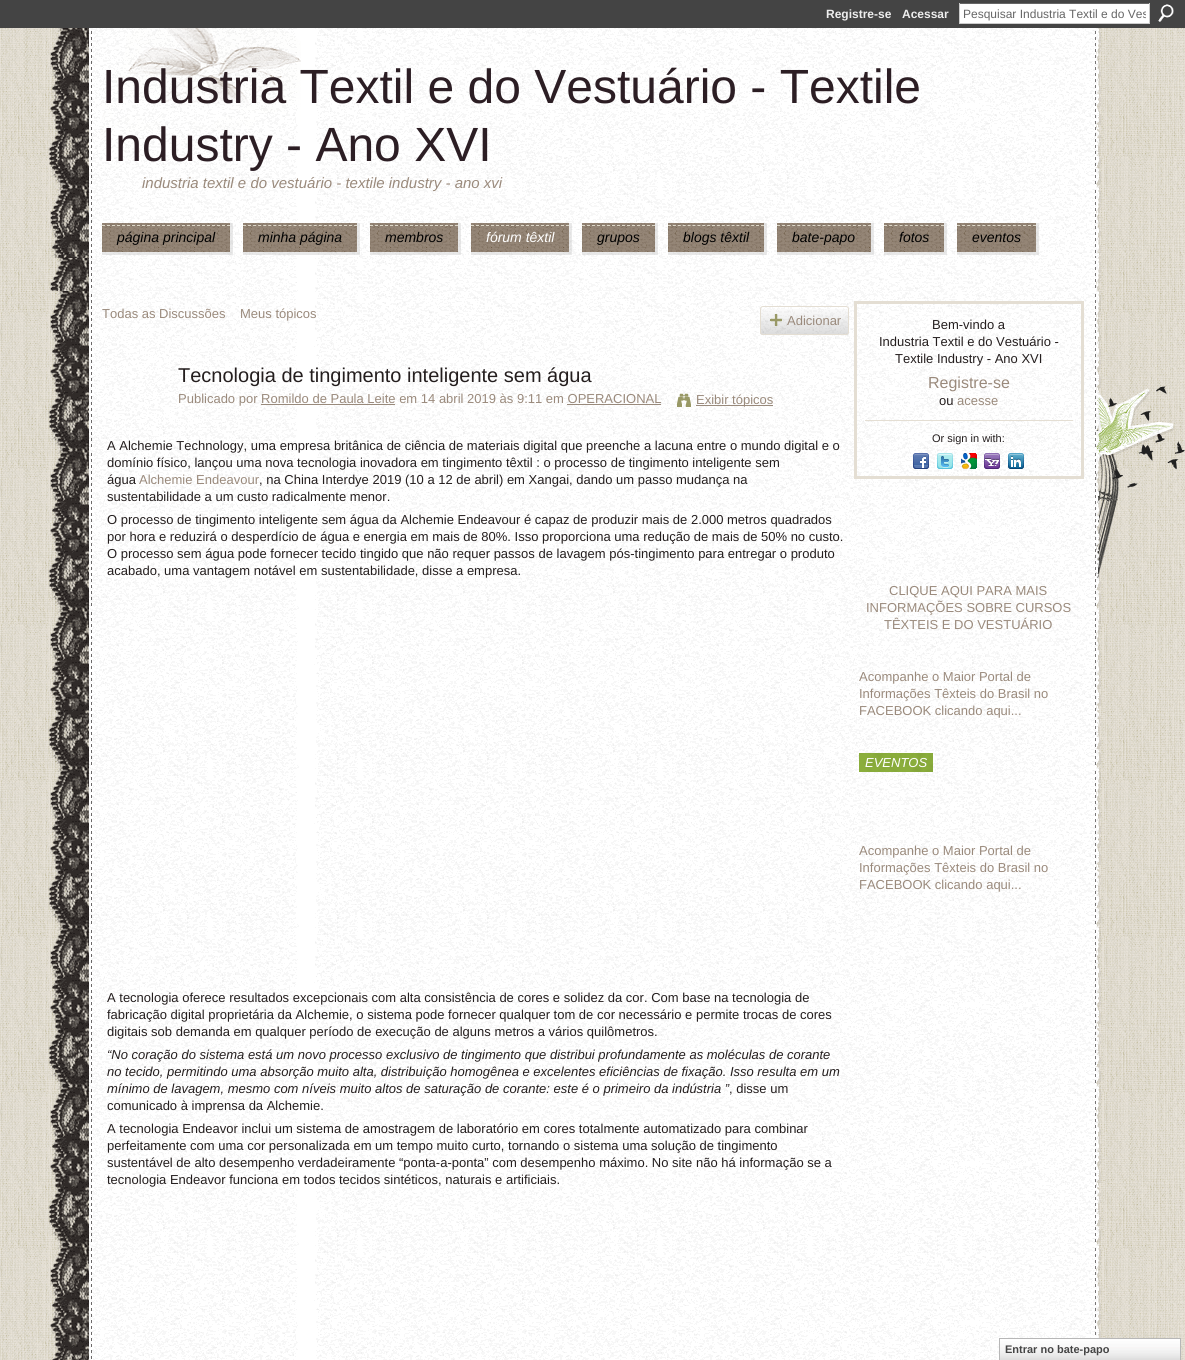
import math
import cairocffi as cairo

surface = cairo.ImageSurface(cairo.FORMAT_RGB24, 1185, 1360)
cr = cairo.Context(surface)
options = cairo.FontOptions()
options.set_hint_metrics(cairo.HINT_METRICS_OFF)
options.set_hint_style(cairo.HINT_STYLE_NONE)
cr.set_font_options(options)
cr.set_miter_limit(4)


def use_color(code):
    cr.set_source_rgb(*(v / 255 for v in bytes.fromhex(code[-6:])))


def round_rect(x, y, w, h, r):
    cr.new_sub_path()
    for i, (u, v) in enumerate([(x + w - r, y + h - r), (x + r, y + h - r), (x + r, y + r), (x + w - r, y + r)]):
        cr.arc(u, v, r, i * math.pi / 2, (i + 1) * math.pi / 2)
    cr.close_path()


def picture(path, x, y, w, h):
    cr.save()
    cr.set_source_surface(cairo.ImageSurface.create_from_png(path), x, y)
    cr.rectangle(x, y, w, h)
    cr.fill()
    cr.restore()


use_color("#ffffff")
cr.paint()
picture("img1.png", 0, 28, 1185, 1332)
use_color("#444444")
cr.rectangle(0, 0, 1185, 28)
cr.fill()
cr.select_font_face("Liberation Sans", cairo.FONT_SLANT_NORMAL, cairo.FONT_WEIGHT_BOLD)
cr.set_font_size(12)
use_color("#eeeeee")
cr.move_to(826, 18)
cr.show_text("Registre-se")
cr.move_to(902, 18)
cr.show_text("Acessar")
use_color("#ffffff")
cr.rectangle(960, 4, 189, 19)
cr.fill()
use_color("#666666")
cr.rectangle(959, 3, 191, 1)
cr.fill()
use_color("#cccccc")
cr.rectangle(1149, 3, 1, 21)
cr.fill()
cr.rectangle(959, 23, 191, 1)
cr.fill()
cr.rectangle(959, 3, 1, 21)
cr.fill()
cr.save()
cr.rectangle(963, 7, 183, 14)
cr.clip()
cr.select_font_face("Liberation Sans")
use_color("#666666")
cr.move_to(963, 18)
cr.show_text("Pesquisar Industria Textil e do Ves")
cr.restore()
picture("img2.png", 1158, 4, 16, 18)
picture("img3.png", 48, 28, 1053, 230)
picture("img4.png", 101, 28, 200, 104)
cr.select_font_face("Liberation Sans")
cr.set_font_size(48)
use_color("#2c1e24")
cr.move_to(102, 103)
cr.show_text("Industria Textil e do Vestuário - Textile")
cr.move_to(102, 161)
cr.show_text("Industry - Ano XVI")
cr.select_font_face("Liberation Sans", cairo.FONT_SLANT_ITALIC)
cr.set_font_size(15)
use_color("#9a8a7c")
cr.move_to(142, 188)
cr.show_text("industria textil e do vestuário - textile industry - ano xvi")
picture("img5.png", 102, 223, 131, 32)
picture("img6.png", 102, 223, 128, 29)
cr.new_path()
cr.move_to(102, 225.5)
cr.line_to(230, 225.5)
use_color("#ddd8c9")
cr.set_line_width(1)
cr.set_dash([3, 2])
cr.stroke()
cr.set_font_size(14)
use_color("#000000")
cr.move_to(117, 242)
cr.show_text("página principal")
picture("img7.png", 243, 223, 117, 32)
picture("img8.png", 243, 223, 114, 29)
cr.new_path()
cr.move_to(243, 225.5)
cr.line_to(357, 225.5)
use_color("#ddd8c9")
cr.set_dash([3, 2.05])
cr.stroke()
use_color("#000000")
cr.move_to(258, 242)
cr.show_text("minha página")
picture("img9.png", 370, 223, 91, 32)
picture("img10.png", 370, 223, 88, 29)
cr.new_path()
cr.move_to(370, 225.5)
cr.line_to(458, 225.5)
use_color("#ddd8c9")
cr.set_dash([3, 2])
cr.stroke()
use_color("#000000")
cr.move_to(385, 242)
cr.show_text("membros")
picture("img11.png", 471, 223, 101, 32)
picture("img12.png", 471, 223, 98, 29)
cr.new_path()
cr.move_to(471, 225.5)
cr.line_to(569, 225.5)
use_color("#ddd8c9")
cr.stroke()
use_color("#ffffff")
cr.move_to(486, 242)
cr.show_text("fórum têxtil")
picture("img13.png", 582, 223, 76, 32)
picture("img14.png", 582, 223, 73, 29)
cr.new_path()
cr.move_to(582, 225.5)
cr.line_to(655, 225.5)
use_color("#ddd8c9")
cr.stroke()
use_color("#000000")
cr.move_to(597, 242)
cr.show_text("grupos")
picture("img15.png", 668, 223, 99, 32)
picture("img16.png", 668, 223, 96, 29)
cr.new_path()
cr.move_to(668, 225.5)
cr.line_to(764, 225.5)
use_color("#ddd8c9")
cr.set_dash([3, 1.89])
cr.stroke()
use_color("#000000")
cr.move_to(683, 242)
cr.show_text("blogs têxtil")
picture("img17.png", 777, 223, 97, 32)
picture("img18.png", 777, 223, 94, 29)
cr.new_path()
cr.move_to(777, 225.5)
cr.line_to(871, 225.5)
use_color("#ddd8c9")
cr.set_dash([3, 2.06])
cr.stroke()
use_color("#000000")
cr.move_to(792, 242)
cr.show_text("bate-papo")
picture("img19.png", 884, 223, 63, 32)
picture("img20.png", 884, 223, 60, 29)
cr.new_path()
cr.move_to(884, 225.5)
cr.line_to(944, 225.5)
use_color("#ddd8c9")
cr.set_dash([3, 2.18])
cr.stroke()
use_color("#000000")
cr.move_to(899, 242)
cr.show_text("fotos")
picture("img21.png", 957, 223, 82, 32)
picture("img22.png", 957, 223, 79, 29)
cr.new_path()
cr.move_to(957, 225.5)
cr.line_to(1036, 225.5)
use_color("#ddd8c9")
cr.set_dash([3, 2.07])
cr.stroke()
use_color("#000000")
cr.move_to(972, 242)
cr.show_text("eventos")
picture("img23.png", 50, 258, 1051, 33)
picture("img24.png", 1095, 386, 90, 197)
picture("img25.png", 48, 291, 1053, 1069)
cr.select_font_face("Liberation Sans")
cr.set_font_size(13)
use_color("#9a8a7c")
cr.move_to(102, 318)
cr.show_text("Todas as Discussões")
cr.move_to(240, 318)
cr.show_text("Meus tópicos")
picture("img26.png", 760, 309, 89, 26)
round_rect(760.5, 306.5, 88, 28, 2.5)
use_color("#e4ded3")
cr.set_dash([])
cr.stroke()
picture("img27.png", 770, 314, 12, 12)
use_color("#9a8a7c")
cr.move_to(787, 325)
cr.show_text("Adicionar")
cr.set_font_size(20)
use_color("#241e1e")
cr.move_to(178, 382)
cr.show_text("Tecnologia de tingimento inteligente sem água")
cr.set_font_size(13)
use_color("#9a8a7c")
cr.move_to(178, 403)
cr.show_text("Publicado por Romildo de Paula Leite em 14 abril 2019 às 9:11 em OPERACIONAL")
use_color("#998a7c")
cr.rectangle(261, 404, 134, 1)
cr.fill()
cr.rectangle(567, 404, 94, 1)
cr.fill()
picture("img28.png", 677, 393, 14, 14)
cr.rectangle(696, 405, 77, 1)
cr.fill()
use_color("#9a8a7c")
cr.move_to(696, 404)
cr.show_text("Exibir tópicos")
use_color("#241e1e")
cr.move_to(107, 450)
cr.show_text("A Alchemie Technology, uma empresa britânica de ciência de materiais digital que preenche a lacuna entre o mundo digital e o")
cr.move_to(107, 467)
cr.show_text("domínio físico, lançou uma nova tecnologia inovadora em tingimento têxtil : o processo de tingimento inteligente sem")
cr.move_to(107, 484)
cr.show_text("água")
use_color("#9a8a7c")
cr.move_to(139, 484)
cr.show_text("Alchemie Endeavour")
use_color("#241e1e")
cr.move_to(259, 484)
cr.show_text(", na China Interdye 2019 (10 a 12 de abril) em Xangai, dando um passo mudança na")
cr.move_to(107, 501)
cr.show_text("sustentabilidade a um custo radicalmente menor.")
cr.move_to(107, 524)
cr.show_text("O processo de tingimento inteligente sem água da Alchemie Endeavour é capaz de produzir mais de 2.000 metros quadrados")
cr.move_to(107, 541)
cr.show_text("por hora e reduzirá o desperdício de água e energia em mais de 80%. Isso proporciona uma redução de mais de 50% no custo.")
cr.move_to(107, 558)
cr.show_text("O processo sem água pode fornecer tecido tingido que não requer passos de lavagem pós-tingimento para entregar o produto")
cr.move_to(107, 575)
cr.show_text("acabado, uma vantagem notável em sustentabilidade, disse a empresa.")
cr.move_to(107, 1002)
cr.show_text("A tecnologia oferece resultados excepcionais com alta consistência de cores e solidez da cor. Com base na tecnologia de")
cr.move_to(107, 1019)
cr.show_text("fabricação digital proprietária da Alchemie, o sistema pode fornecer qualquer tom de cor necessário e permite trocas de cores")
cr.move_to(107, 1036)
cr.show_text("digitais sob demanda em qualquer período de execução de alguns metros a vários quilômetros.")
cr.select_font_face("Liberation Sans", cairo.FONT_SLANT_ITALIC)
cr.move_to(107, 1059)
cr.show_text("“No coração do sistema está um novo processo exclusivo de tingimento que distribui profundamente as moléculas de corante")
cr.move_to(107, 1076)
cr.show_text("no tecido, permitindo uma absorção muito alta, distribuição homogênea e excelentes eficiências de fixação. Isso resulta em um")
cr.move_to(107, 1093)
cr.show_text("mínimo de lavagem, mesmo com níveis muito altos de saturação de corante: este é o primeiro da indústria ”")
cr.select_font_face("Liberation Sans")
cr.move_to(729, 1093)
cr.show_text(", disse um")
cr.move_to(107, 1110)
cr.show_text("comunicado à imprensa da Alchemie.")
cr.move_to(107, 1133)
cr.show_text("A tecnologia Endeavor inclui um sistema de amostragem de laboratório em cores totalmente automatizado para combinar")
cr.move_to(107, 1150)
cr.show_text("perfeitamente com uma cor personalizada em um tempo muito curto, tornando o sistema uma solução de tingimento")
cr.move_to(107, 1167)
cr.show_text("sustentável de alto desempenho verdadeiramente “ponta-a-ponta” com desempenho máximo. No site não há informação se a")
cr.move_to(107, 1184)
cr.show_text("tecnologia Endeavor funciona em todos tecidos sintéticos, naturais e artificiais.")
cr.rectangle(855.5, 302.5, 227, 175)
use_color("#e4ded3")
cr.set_line_width(3)
cr.stroke()
use_color("#241e1e")
cr.move_to(932, 329)
cr.show_text("Bem-vindo a")
cr.move_to(879, 346)
cr.show_text("Industria Textil e do Vestuário -")
cr.move_to(895, 363)
cr.show_text("Textile Industry - Ano XVI")
cr.set_font_size(16)
use_color("#9a8a7c")
cr.move_to(928, 388)
cr.show_text("Registre-se")
cr.set_font_size(13)
use_color("#241e1e")
cr.move_to(939, 405)
cr.show_text("ou")
use_color("#9a8a7c")
cr.move_to(957, 405)
cr.show_text("acesse")
use_color("#e4ded3")
cr.rectangle(865, 420, 208, 1)
cr.fill()
cr.set_font_size(11)
use_color("#241e1e")
cr.move_to(932, 442)
cr.show_text("Or sign in with:")
picture("img29.png", 913, 453, 16, 16)
picture("img30.png", 937, 453, 16, 16)
picture("img31.png", 961, 453, 16, 16)
picture("img32.png", 984, 453, 16, 16)
picture("img33.png", 1008, 453, 16, 16)
cr.set_font_size(13)
use_color("#9a8a7c")
cr.move_to(889, 595)
cr.show_text("CLIQUE AQUI PARA MAIS")
cr.move_to(866, 612)
cr.show_text("INFORMAÇÕES SOBRE CURSOS")
cr.move_to(884, 629)
cr.show_text("TÊXTEIS E DO VESTUÁRIO")
cr.move_to(859, 681)
cr.show_text("Acompanhe o Maior Portal de")
cr.move_to(859, 698)
cr.show_text("Informações Têxteis do Brasil no")
cr.move_to(859, 715)
cr.show_text("FACEBOOK clicando aqui...")
use_color("#8bae3c")
cr.rectangle(859, 753, 74, 19)
cr.fill()
picture("img34.png", 859, 753, 74, 19)
cr.select_font_face("Liberation Sans", cairo.FONT_SLANT_ITALIC)
use_color("#ffffff")
cr.move_to(865, 767)
cr.show_text("EVENTOS")
cr.select_font_face("Liberation Sans")
use_color("#9a8a7c")
cr.move_to(859, 855)
cr.show_text("Acompanhe o Maior Portal de")
cr.move_to(859, 872)
cr.show_text("Informações Têxteis do Brasil no")
cr.move_to(859, 889)
cr.show_text("FACEBOOK clicando aqui...")
picture("img35.png", 1000, 1339, 180, 21)
cr.rectangle(999.5, 1338.5, 181, 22)
use_color("#b7b7b7")
cr.set_line_width(1)
cr.stroke()
cr.select_font_face("Liberation Sans", cairo.FONT_SLANT_NORMAL, cairo.FONT_WEIGHT_BOLD)
cr.set_font_size(11)
use_color("#454545")
cr.move_to(1005, 1353)
cr.show_text("Entrar no bate-papo")
surface.write_to_png("result.png")
